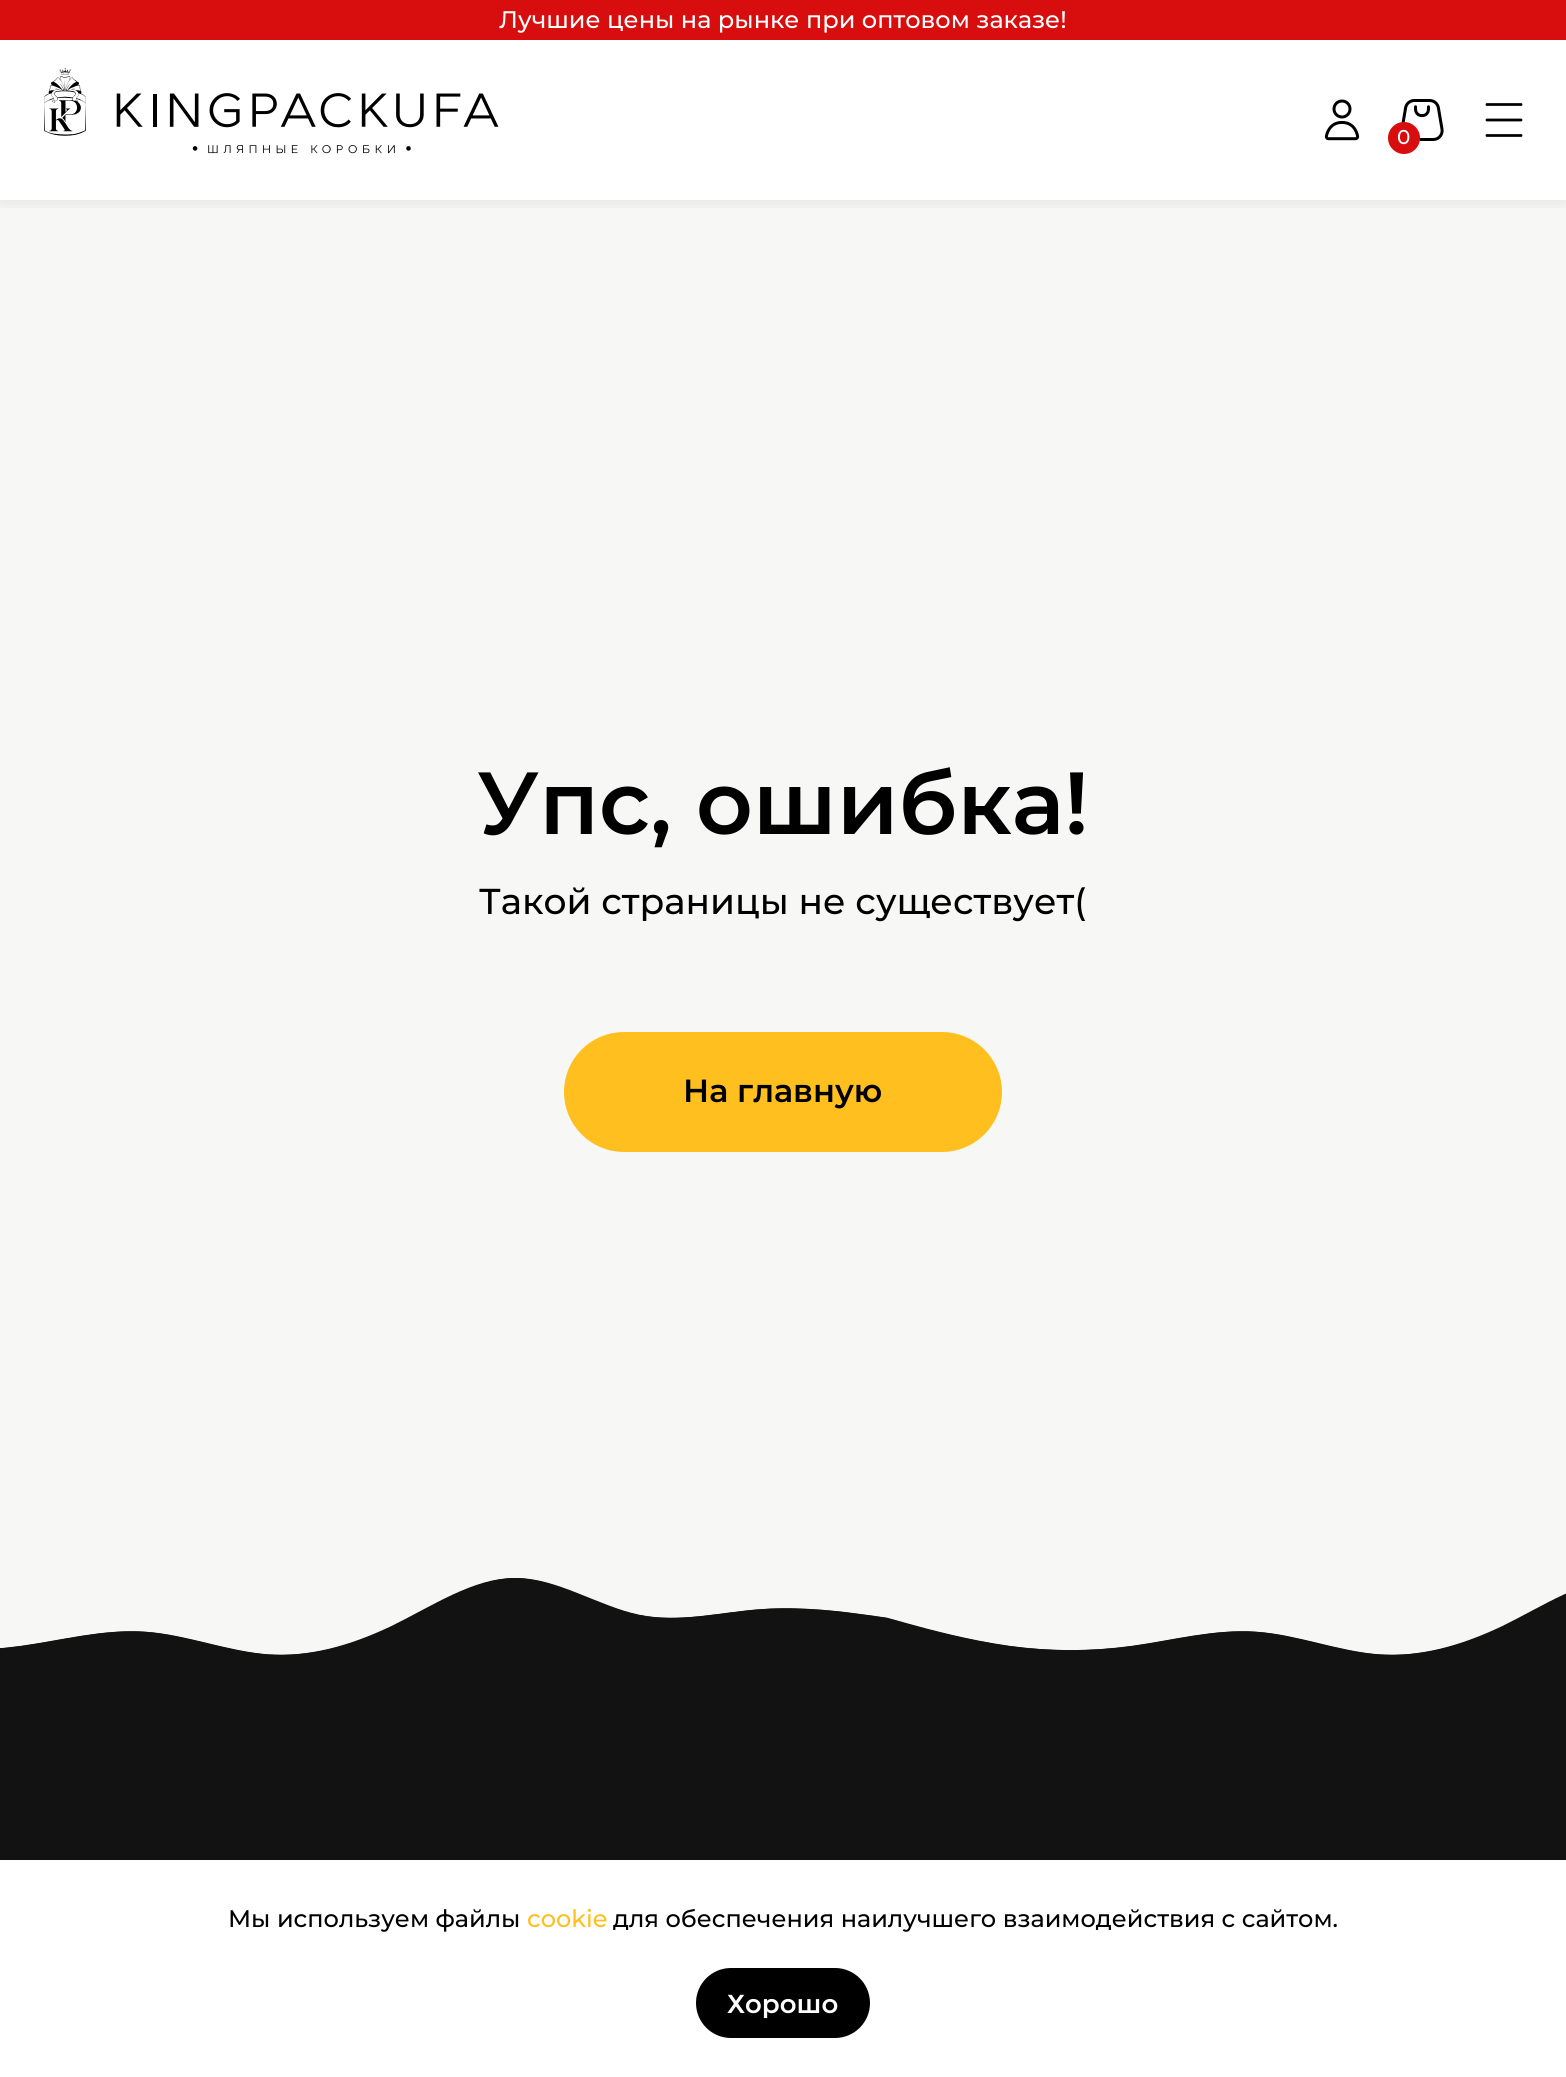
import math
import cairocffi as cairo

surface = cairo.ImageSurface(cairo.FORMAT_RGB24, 1566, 2077)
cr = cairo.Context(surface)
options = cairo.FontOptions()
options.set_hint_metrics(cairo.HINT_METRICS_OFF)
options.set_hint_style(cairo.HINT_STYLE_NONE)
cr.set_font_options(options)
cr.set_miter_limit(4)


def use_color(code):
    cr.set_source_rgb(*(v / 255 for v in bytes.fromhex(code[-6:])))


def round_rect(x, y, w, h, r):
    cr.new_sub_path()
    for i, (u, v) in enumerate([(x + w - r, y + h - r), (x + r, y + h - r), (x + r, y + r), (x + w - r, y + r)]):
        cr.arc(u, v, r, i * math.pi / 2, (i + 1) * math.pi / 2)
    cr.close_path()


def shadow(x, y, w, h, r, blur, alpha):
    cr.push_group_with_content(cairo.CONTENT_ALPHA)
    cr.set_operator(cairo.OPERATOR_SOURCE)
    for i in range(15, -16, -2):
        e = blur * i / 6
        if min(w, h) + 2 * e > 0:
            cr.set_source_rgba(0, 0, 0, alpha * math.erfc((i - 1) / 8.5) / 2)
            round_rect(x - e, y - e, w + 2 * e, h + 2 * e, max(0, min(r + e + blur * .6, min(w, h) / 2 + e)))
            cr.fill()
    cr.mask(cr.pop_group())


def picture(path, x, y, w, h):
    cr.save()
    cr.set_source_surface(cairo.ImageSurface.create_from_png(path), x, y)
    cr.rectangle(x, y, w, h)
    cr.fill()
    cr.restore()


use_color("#ffffff")
cr.paint()
use_color("#f7f7f6")
cr.rectangle(0, 200, 1566, 1455)
cr.fill()
cr.save()
cr.rectangle(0, 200, 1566, 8)
cr.clip()
use_color("#000000")
shadow(0, 0, 1566, 200, 0, 10, 0.1)
cr.restore()
use_color("#d80d0d")
cr.rectangle(0, 0, 1566, 40)
cr.fill()
cr.select_font_face("Montserrat Medium")
cr.set_font_size(24)
use_color("#ffffff")
cr.move_to(499, 28)
cr.show_text("Лучшие цены на рынке при оптовом заказе!")
picture("img1.png", 44, 68, 42, 68)
picture("img2.png", 116, 93, 383, 61)
picture("img3.png", 1324, 99, 36, 42)
picture("img4.png", 1401, 99, 43, 42)
cr.new_path()
cr.move_to(1487, 104.5)
cr.line_to(1521, 104.5)
cr.move_to(1487, 120)
cr.line_to(1521, 120)
cr.move_to(1487, 135.5)
cr.line_to(1521, 135.5)
use_color("#000000")
cr.set_line_width(2.8)
cr.set_line_cap(cairo.LINE_CAP_ROUND)
cr.stroke()
use_color("#d80d0d")
cr.arc(1404, 138, 16, 0, 2 * math.pi)
cr.fill()
cr.set_font_size(20)
use_color("#ffffff")
cr.move_to(1397, 144)
cr.show_text("0")
cr.select_font_face("Montserrat SemiBold")
cr.set_font_size(88)
use_color("#000000")
cr.move_to(477, 834)
cr.show_text("Упс, ошибка!")
cr.select_font_face("Montserrat Medium")
cr.set_font_size(36)
cr.move_to(479, 914)
cr.show_text("Такой страницы не существует(")
use_color("#ffc01f")
round_rect(564, 1032, 438, 120, 60)
cr.fill()
cr.select_font_face("Montserrat SemiBold")
cr.set_font_size(32)
use_color("#000000")
cr.move_to(683, 1102)
cr.show_text("На главную")
picture("img5.png", 0, 1578, 1566, 122)
picture("img6.png", 0, 1578, 1472, 122)
use_color("#121212")
cr.rectangle(0, 1700, 1566, 160)
cr.fill()
cr.select_font_face("Montserrat Medium")
cr.set_font_size(24)
use_color("#000000")
cr.move_to(228, 1927)
cr.show_text("Мы используем файлы")
use_color("#ffc01f")
cr.move_to(527, 1927)
cr.show_text("cookie")
use_color("#000000")
cr.move_to(613, 1927)
cr.show_text("для обеспечения наилучшего взаимодействия с сайтом.")
round_rect(697, 1969, 172, 68, 34)
cr.fill_preserve()
cr.set_line_width(2)
cr.set_line_cap(cairo.LINE_CAP_BUTT)
cr.stroke()
cr.select_font_face("Montserrat SemiBold")
cr.set_font_size(26)
use_color("#ffffff")
cr.move_to(727, 2013)
cr.show_text("Хорошо")
surface.write_to_png("result.png")
